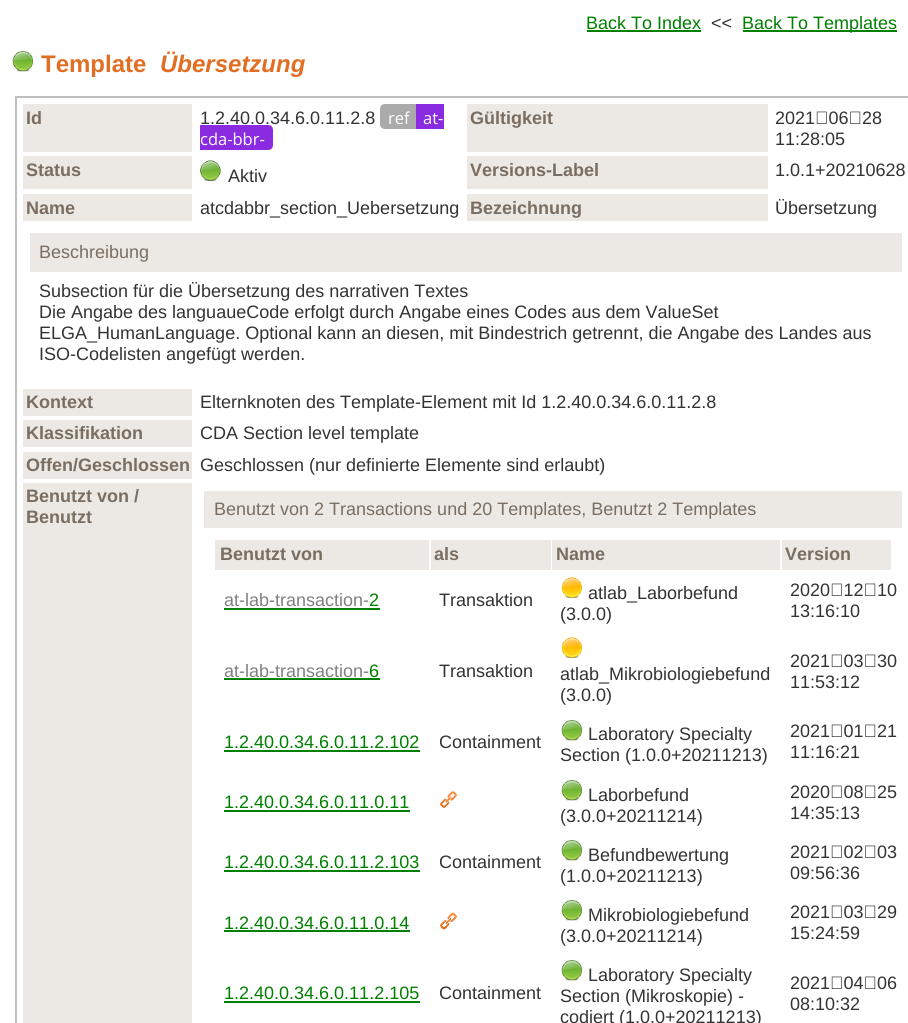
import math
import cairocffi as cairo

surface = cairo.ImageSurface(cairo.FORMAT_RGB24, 908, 1023)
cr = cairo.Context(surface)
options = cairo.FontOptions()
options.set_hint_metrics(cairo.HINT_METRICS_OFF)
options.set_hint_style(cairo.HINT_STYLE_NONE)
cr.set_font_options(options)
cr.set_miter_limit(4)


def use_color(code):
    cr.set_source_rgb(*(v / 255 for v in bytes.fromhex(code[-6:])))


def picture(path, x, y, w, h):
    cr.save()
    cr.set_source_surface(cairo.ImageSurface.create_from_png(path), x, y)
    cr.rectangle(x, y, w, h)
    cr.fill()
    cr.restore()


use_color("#ffffff")
cr.paint()
cr.select_font_face("Liberation Sans")
cr.set_font_size(18)
use_color("#008000")
cr.move_to(586, 29)
cr.show_text("Back To Index")
cr.rectangle(587, 30, 114, 2)
cr.fill()
use_color("#333333")
cr.move_to(711, 29)
cr.show_text("<<")
use_color("#008000")
cr.rectangle(743, 30, 154, 2)
cr.fill()
cr.move_to(742, 29)
cr.show_text("Back To Templates")
picture("img1.png", 12, 51, 21, 21)
cr.select_font_face("Liberation Sans", cairo.FONT_SLANT_NORMAL, cairo.FONT_WEIGHT_BOLD)
cr.set_font_size(24)
use_color("#e16e22")
cr.move_to(41, 72)
cr.show_text("Template")
cr.select_font_face("Liberation Sans", cairo.FONT_SLANT_ITALIC, cairo.FONT_WEIGHT_BOLD)
cr.move_to(160, 72)
cr.show_text("Übersetzung")
cr.rectangle(16, 97, 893, 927)
use_color("#c0c0c0")
cr.stroke()
use_color("#ece9e4")
cr.rectangle(23, 104, 169, 48)
cr.fill()
cr.select_font_face("Liberation Sans", cairo.FONT_SLANT_NORMAL, cairo.FONT_WEIGHT_BOLD)
cr.set_font_size(18)
use_color("#7a6e62")
cr.move_to(26, 124)
cr.show_text("Id")
cr.select_font_face("Liberation Sans")
use_color("#333333")
cr.move_to(200, 124)
cr.show_text("1.2.40.0.34.6.0.11.2.8")
use_color("#aaaaaa")
cr.new_path()
cr.move_to(385, 104)
cr.line_to(417, 104)
cr.line_to(417, 129)
cr.line_to(385, 129)
cr.curve_to(382, 129, 380, 127, 380, 124)
cr.line_to(380, 109)
cr.curve_to(380, 106, 382, 104, 385, 104)
cr.close_path()
cr.fill()
cr.select_font_face("Open Sans")
cr.set_font_size(16.5)
use_color("#ffffff")
cr.move_to(388, 124)
cr.show_text("ref")
use_color("#8a2be2")
cr.rectangle(416, 104, 28, 25)
cr.fill()
use_color("#ffffff")
cr.move_to(423, 124)
cr.show_text("at-")
use_color("#8a2be2")
cr.new_path()
cr.move_to(200, 125)
cr.line_to(268, 125)
cr.curve_to(271, 125, 273, 127, 273, 130)
cr.line_to(273, 145)
cr.curve_to(273, 148, 271, 150, 268, 150)
cr.line_to(200, 150)
cr.close_path()
cr.fill()
use_color("#ffffff")
cr.move_to(200, 145)
cr.show_text("cda-bbr-")
use_color("#ece9e4")
cr.rectangle(467, 104, 301, 48)
cr.fill()
cr.select_font_face("Liberation Sans", cairo.FONT_SLANT_NORMAL, cairo.FONT_WEIGHT_BOLD)
cr.set_font_size(18)
use_color("#7a6e62")
cr.move_to(470, 124)
cr.show_text("Gültigkeit")
cr.select_font_face("Liberation Sans")
use_color("#333333")
cr.move_to(775, 124)
cr.show_text("2021‑06‑28")
cr.move_to(775, 145)
cr.show_text("11:28:05")
use_color("#ece9e4")
cr.rectangle(23, 156, 169, 33)
cr.fill()
cr.select_font_face("Liberation Sans", cairo.FONT_SLANT_NORMAL, cairo.FONT_WEIGHT_BOLD)
use_color("#7a6e62")
cr.move_to(26, 176)
cr.show_text("Status")
picture("img2.png", 200, 160, 21, 21)
cr.select_font_face("Liberation Sans")
use_color("#333333")
cr.move_to(228, 182)
cr.show_text("Aktiv")
use_color("#ece9e4")
cr.rectangle(467, 156, 301, 33)
cr.fill()
cr.select_font_face("Liberation Sans", cairo.FONT_SLANT_NORMAL, cairo.FONT_WEIGHT_BOLD)
use_color("#7a6e62")
cr.move_to(470, 176)
cr.show_text("Versions-Label")
cr.select_font_face("Liberation Sans")
use_color("#333333")
cr.move_to(775, 176)
cr.show_text("1.0.1+20210628")
use_color("#ece9e4")
cr.rectangle(23, 194, 169, 27)
cr.fill()
cr.select_font_face("Liberation Sans", cairo.FONT_SLANT_NORMAL, cairo.FONT_WEIGHT_BOLD)
use_color("#7a6e62")
cr.move_to(26, 214)
cr.show_text("Name")
cr.select_font_face("Liberation Sans")
use_color("#333333")
cr.move_to(200, 214)
cr.show_text("atcdabbr_section_Uebersetzung")
use_color("#ece9e4")
cr.rectangle(467, 194, 301, 27)
cr.fill()
cr.select_font_face("Liberation Sans", cairo.FONT_SLANT_NORMAL, cairo.FONT_WEIGHT_BOLD)
use_color("#7a6e62")
cr.move_to(470, 214)
cr.show_text("Bezeichnung")
cr.select_font_face("Liberation Sans")
use_color("#333333")
cr.move_to(775, 214)
cr.show_text("Übersetzung")
use_color("#ece9e4")
cr.rectangle(30, 233, 872, 39)
cr.fill()
use_color("#7a6e62")
cr.move_to(39, 258)
cr.show_text("Beschreibung")
use_color("#333333")
cr.move_to(39, 297)
cr.show_text("Subsection für die Übersetzung des narrativen Textes")
cr.move_to(39, 318)
cr.show_text("Die Angabe des languaueCode erfolgt durch Angabe eines Codes aus dem ValueSet")
cr.move_to(39, 339)
cr.show_text("ELGA_HumanLanguage. Optional kann an diesen, mit Bindestrich getrennt, die Angabe des Landes aus")
cr.move_to(39, 360)
cr.show_text("ISO-Codelisten angefügt werden.")
use_color("#ece9e4")
cr.rectangle(23, 389, 169, 27)
cr.fill()
cr.select_font_face("Liberation Sans", cairo.FONT_SLANT_NORMAL, cairo.FONT_WEIGHT_BOLD)
use_color("#7a6e62")
cr.move_to(26, 408)
cr.show_text("Kontext")
cr.select_font_face("Liberation Sans")
use_color("#333333")
cr.move_to(200, 408)
cr.show_text("Elternknoten des Template-Element mit Id 1.2.40.0.34.6.0.11.2.8")
use_color("#ece9e4")
cr.rectangle(23, 420, 169, 27)
cr.fill()
cr.select_font_face("Liberation Sans", cairo.FONT_SLANT_NORMAL, cairo.FONT_WEIGHT_BOLD)
use_color("#7a6e62")
cr.move_to(26, 439)
cr.show_text("Klassifikation")
cr.select_font_face("Liberation Sans")
use_color("#333333")
cr.move_to(200, 439)
cr.show_text("CDA Section level template")
use_color("#ece9e4")
cr.rectangle(23, 452, 169, 27)
cr.fill()
cr.select_font_face("Liberation Sans", cairo.FONT_SLANT_NORMAL, cairo.FONT_WEIGHT_BOLD)
use_color("#7a6e62")
cr.move_to(26, 471)
cr.show_text("Offen/Geschlossen")
cr.select_font_face("Liberation Sans")
use_color("#333333")
cr.move_to(200, 471)
cr.show_text("Geschlossen (nur definierte Elemente sind erlaubt)")
use_color("#ece9e4")
cr.rectangle(23, 483, 169, 540)
cr.fill()
cr.select_font_face("Liberation Sans", cairo.FONT_SLANT_NORMAL, cairo.FONT_WEIGHT_BOLD)
use_color("#7a6e62")
cr.move_to(26, 502)
cr.show_text("Benutzt von /")
cr.move_to(26, 523)
cr.show_text("Benutzt")
use_color("#ece9e4")
cr.rectangle(204, 491, 698, 37)
cr.fill()
cr.select_font_face("Liberation Sans")
use_color("#7a6e62")
cr.move_to(214, 515)
cr.show_text("Benutzt von 2 Transactions und 20 Templates, Benutzt 2 Templates")
use_color("#ece9e4")
cr.rectangle(215, 540, 214, 30)
cr.fill()
cr.select_font_face("Liberation Sans", cairo.FONT_SLANT_NORMAL, cairo.FONT_WEIGHT_BOLD)
use_color("#7a6e62")
cr.move_to(220, 560)
cr.show_text("Benutzt von")
use_color("#ece9e4")
cr.rectangle(431, 540, 120, 30)
cr.fill()
use_color("#7a6e62")
cr.move_to(434, 560)
cr.show_text("als")
use_color("#ece9e4")
cr.rectangle(552, 540, 228, 30)
cr.fill()
use_color("#7a6e62")
cr.move_to(556, 560)
cr.show_text("Name")
use_color("#ece9e4")
cr.rectangle(782, 540, 109, 30)
cr.fill()
use_color("#7a6e62")
cr.move_to(785, 560)
cr.show_text("Version")
cr.select_font_face("Liberation Sans")
use_color("#808080")
cr.move_to(224, 606)
cr.show_text("at-lab-transaction-")
use_color("#008000")
cr.rectangle(224, 608, 156, 2)
cr.fill()
cr.move_to(369, 606)
cr.show_text("2")
use_color("#333333")
cr.move_to(439, 606)
cr.show_text("Transaktion")
picture("img3.png", 561, 577, 21, 21)
cr.move_to(588, 599)
cr.show_text("atlab_Laborbefund")
cr.move_to(560, 620)
cr.show_text("(3.0.0)")
cr.move_to(790, 596)
cr.show_text("2020‑12‑10")
cr.move_to(790, 617)
cr.show_text("13:16:10")
use_color("#808080")
cr.move_to(224, 677)
cr.show_text("at-lab-transaction-")
use_color("#008000")
cr.move_to(369, 677)
cr.show_text("6")
cr.rectangle(224, 678, 156, 2)
cr.fill()
use_color("#333333")
cr.move_to(439, 677)
cr.show_text("Transaktion")
picture("img3.png", 561, 637, 21, 21)
cr.move_to(560, 680)
cr.show_text("atlab_Mikrobiologiebefund")
cr.move_to(560, 701)
cr.show_text("(3.0.0)")
cr.move_to(790, 667)
cr.show_text("2021‑03‑30")
cr.move_to(790, 688)
cr.show_text("11:53:12")
use_color("#008000")
cr.move_to(224, 748)
cr.show_text("1.2.40.0.34.6.0.11.2.102")
cr.rectangle(224, 750, 196, 2)
cr.fill()
use_color("#333333")
cr.move_to(439, 748)
cr.show_text("Containment")
picture("img1.png", 561, 720, 21, 21)
cr.move_to(588, 740)
cr.show_text("Laboratory Specialty")
cr.move_to(560, 761)
cr.show_text("Section (1.0.0+20211213)")
cr.move_to(790, 737)
cr.show_text("2021‑01‑21")
cr.move_to(790, 758)
cr.show_text("11:16:21")
use_color("#008000")
cr.move_to(224, 808)
cr.show_text("1.2.40.0.34.6.0.11.0.11")
cr.rectangle(224, 810, 186, 2)
cr.fill()
picture("img4.png", 440, 791, 17, 17)
picture("img1.png", 561, 780, 21, 21)
use_color("#333333")
cr.move_to(588, 801)
cr.show_text("Laborbefund")
cr.move_to(560, 822)
cr.show_text("(3.0.0+20211214)")
cr.move_to(790, 798)
cr.show_text("2020‑08‑25")
cr.move_to(790, 819)
cr.show_text("14:35:13")
use_color("#008000")
cr.move_to(224, 868)
cr.show_text("1.2.40.0.34.6.0.11.2.103")
cr.rectangle(224, 870, 196, 2)
cr.fill()
use_color("#333333")
cr.move_to(439, 868)
cr.show_text("Containment")
picture("img1.png", 561, 840, 21, 21)
cr.move_to(588, 861)
cr.show_text("Befundbewertung")
cr.move_to(560, 882)
cr.show_text("(1.0.0+20211213)")
cr.move_to(790, 858)
cr.show_text("2021‑02‑03")
cr.move_to(790, 879)
cr.show_text("09:56:36")
use_color("#008000")
cr.move_to(224, 929)
cr.show_text("1.2.40.0.34.6.0.11.0.14")
cr.rectangle(224, 930, 186, 2)
cr.fill()
picture("img5.png", 440, 912, 17, 18)
picture("img1.png", 561, 900, 21, 21)
use_color("#333333")
cr.move_to(588, 921)
cr.show_text("Mikrobiologiebefund")
cr.move_to(560, 942)
cr.show_text("(3.0.0+20211214)")
cr.move_to(790, 918)
cr.show_text("2021‑03‑29")
cr.move_to(790, 939)
cr.show_text("15:24:59")
use_color("#008000")
cr.move_to(224, 999)
cr.show_text("1.2.40.0.34.6.0.11.2.105")
cr.rectangle(224, 1001, 196, 2)
cr.fill()
use_color("#333333")
cr.move_to(439, 999)
cr.show_text("Containment")
picture("img1.png", 561, 960, 21, 21)
cr.move_to(588, 981)
cr.show_text("Laboratory Specialty")
cr.move_to(560, 1002)
cr.show_text("Section (Mikroskopie) -")
cr.move_to(560, 1023)
cr.show_text("codiert (1.0.0+20211213)")
cr.move_to(790, 989)
cr.show_text("2021‑04‑06")
cr.move_to(790, 1010)
cr.show_text("08:10:32")
surface.write_to_png("result.png")
